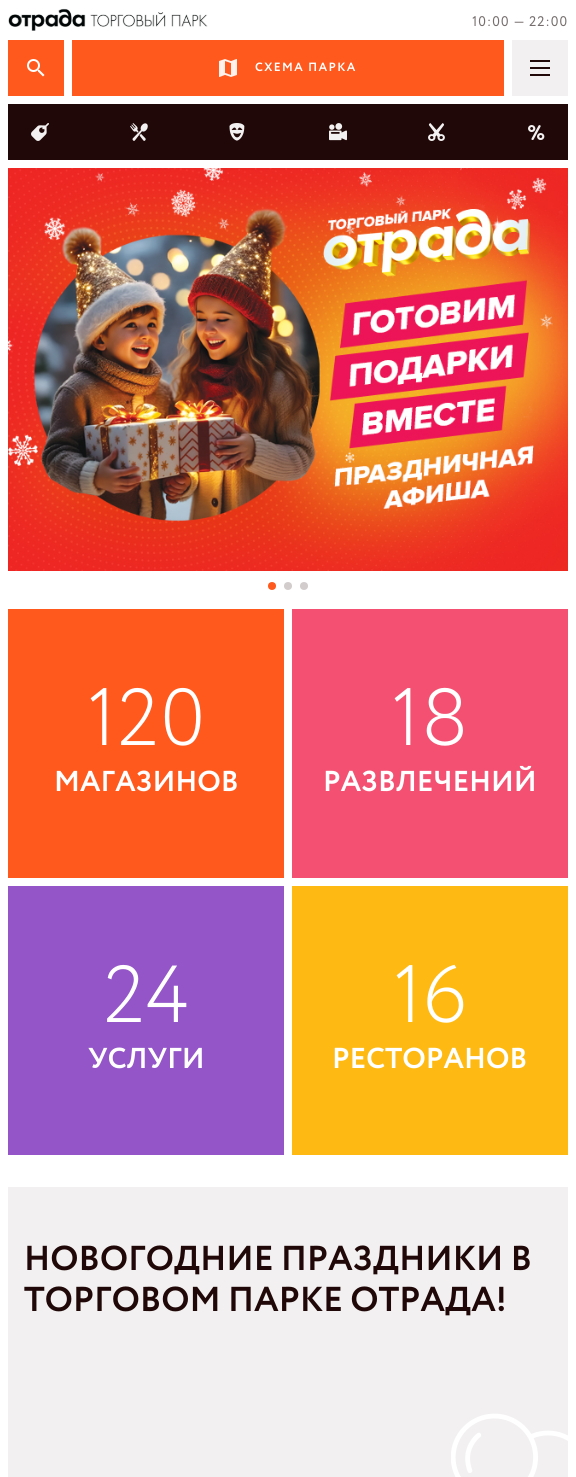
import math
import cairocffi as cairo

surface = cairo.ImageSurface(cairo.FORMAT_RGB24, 576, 1477)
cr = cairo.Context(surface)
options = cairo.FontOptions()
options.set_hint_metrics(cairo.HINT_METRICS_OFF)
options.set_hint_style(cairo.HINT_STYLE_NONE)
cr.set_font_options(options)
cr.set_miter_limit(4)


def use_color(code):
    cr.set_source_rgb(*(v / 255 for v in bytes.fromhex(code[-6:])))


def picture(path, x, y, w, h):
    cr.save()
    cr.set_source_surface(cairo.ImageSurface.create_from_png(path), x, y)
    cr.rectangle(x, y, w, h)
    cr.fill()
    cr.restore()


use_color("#ffffff")
cr.paint()
picture("img1.png", 8, 8, 200, 23)
picture("img2.png", 472, 16, 52, 11)
picture("img3.png", 529, 16, 38, 11)
use_color("#f2f0f0")
cr.rectangle(512, 40, 56, 56)
cr.fill()
use_color("#210808")
cr.rectangle(530, 67, 20, 2)
cr.fill()
cr.rectangle(530, 60, 20, 2)
cr.fill()
cr.rectangle(530, 74, 20, 2)
cr.fill()
use_color("#ff591d")
cr.rectangle(8, 40, 56, 56)
cr.fill()
picture("img4.png", 27, 59, 18, 18)
cr.rectangle(72, 40, 432, 56)
cr.fill()
picture("img5.png", 219, 59, 18, 18)
picture("img6.png", 255, 62, 101, 10)
use_color("#210808")
cr.rectangle(8, 104, 560, 56)
cr.fill()
picture("img7.png", 31, 123, 18, 18)
picture("img8.png", 130, 123, 18, 18)
picture("img9.png", 229, 123, 16, 18)
picture("img10.png", 329, 123, 18, 18)
picture("img11.png", 428, 123, 17, 18)
picture("img12.png", 528, 125, 17, 15)
picture("img13.png", 8, 168, 560, 403)
use_color("#ff591d")
cr.arc(272, 586, 4, 0, 2 * math.pi)
cr.fill()
use_color("#d2cccc")
cr.arc(288, 586, 4, 0, 2 * math.pi)
cr.fill()
cr.arc(304, 586, 4, 0, 2 * math.pi)
cr.fill()
use_color("#ff591d")
cr.rectangle(8, 609, 276, 269)
cr.fill()
picture("img14.png", 90, 687, 111, 59)
picture("img15.png", 56, 770, 181, 22)
use_color("#f45172")
cr.rectangle(292, 609, 276, 269)
cr.fill()
picture("img16.png", 394, 687, 69, 59)
picture("img17.png", 325, 765, 209, 27)
use_color("#9355c8")
cr.rectangle(8, 886, 276, 269)
cr.fill()
picture("img18.png", 107, 964, 80, 58)
picture("img19.png", 88, 1047, 114, 22)
use_color("#feba13")
cr.rectangle(292, 886, 276, 269)
cr.fill()
picture("img20.png", 396, 964, 68, 59)
picture("img21.png", 334, 1047, 192, 22)
use_color("#f2f0f0")
cr.rectangle(8, 1187, 560, 290)
cr.fill()
picture("img22.png", 27, 1245, 503, 30)
picture("img23.png", 24, 1286, 480, 30)
picture("img24.png", 451, 1413, 117, 64)
surface.write_to_png("result.png")
